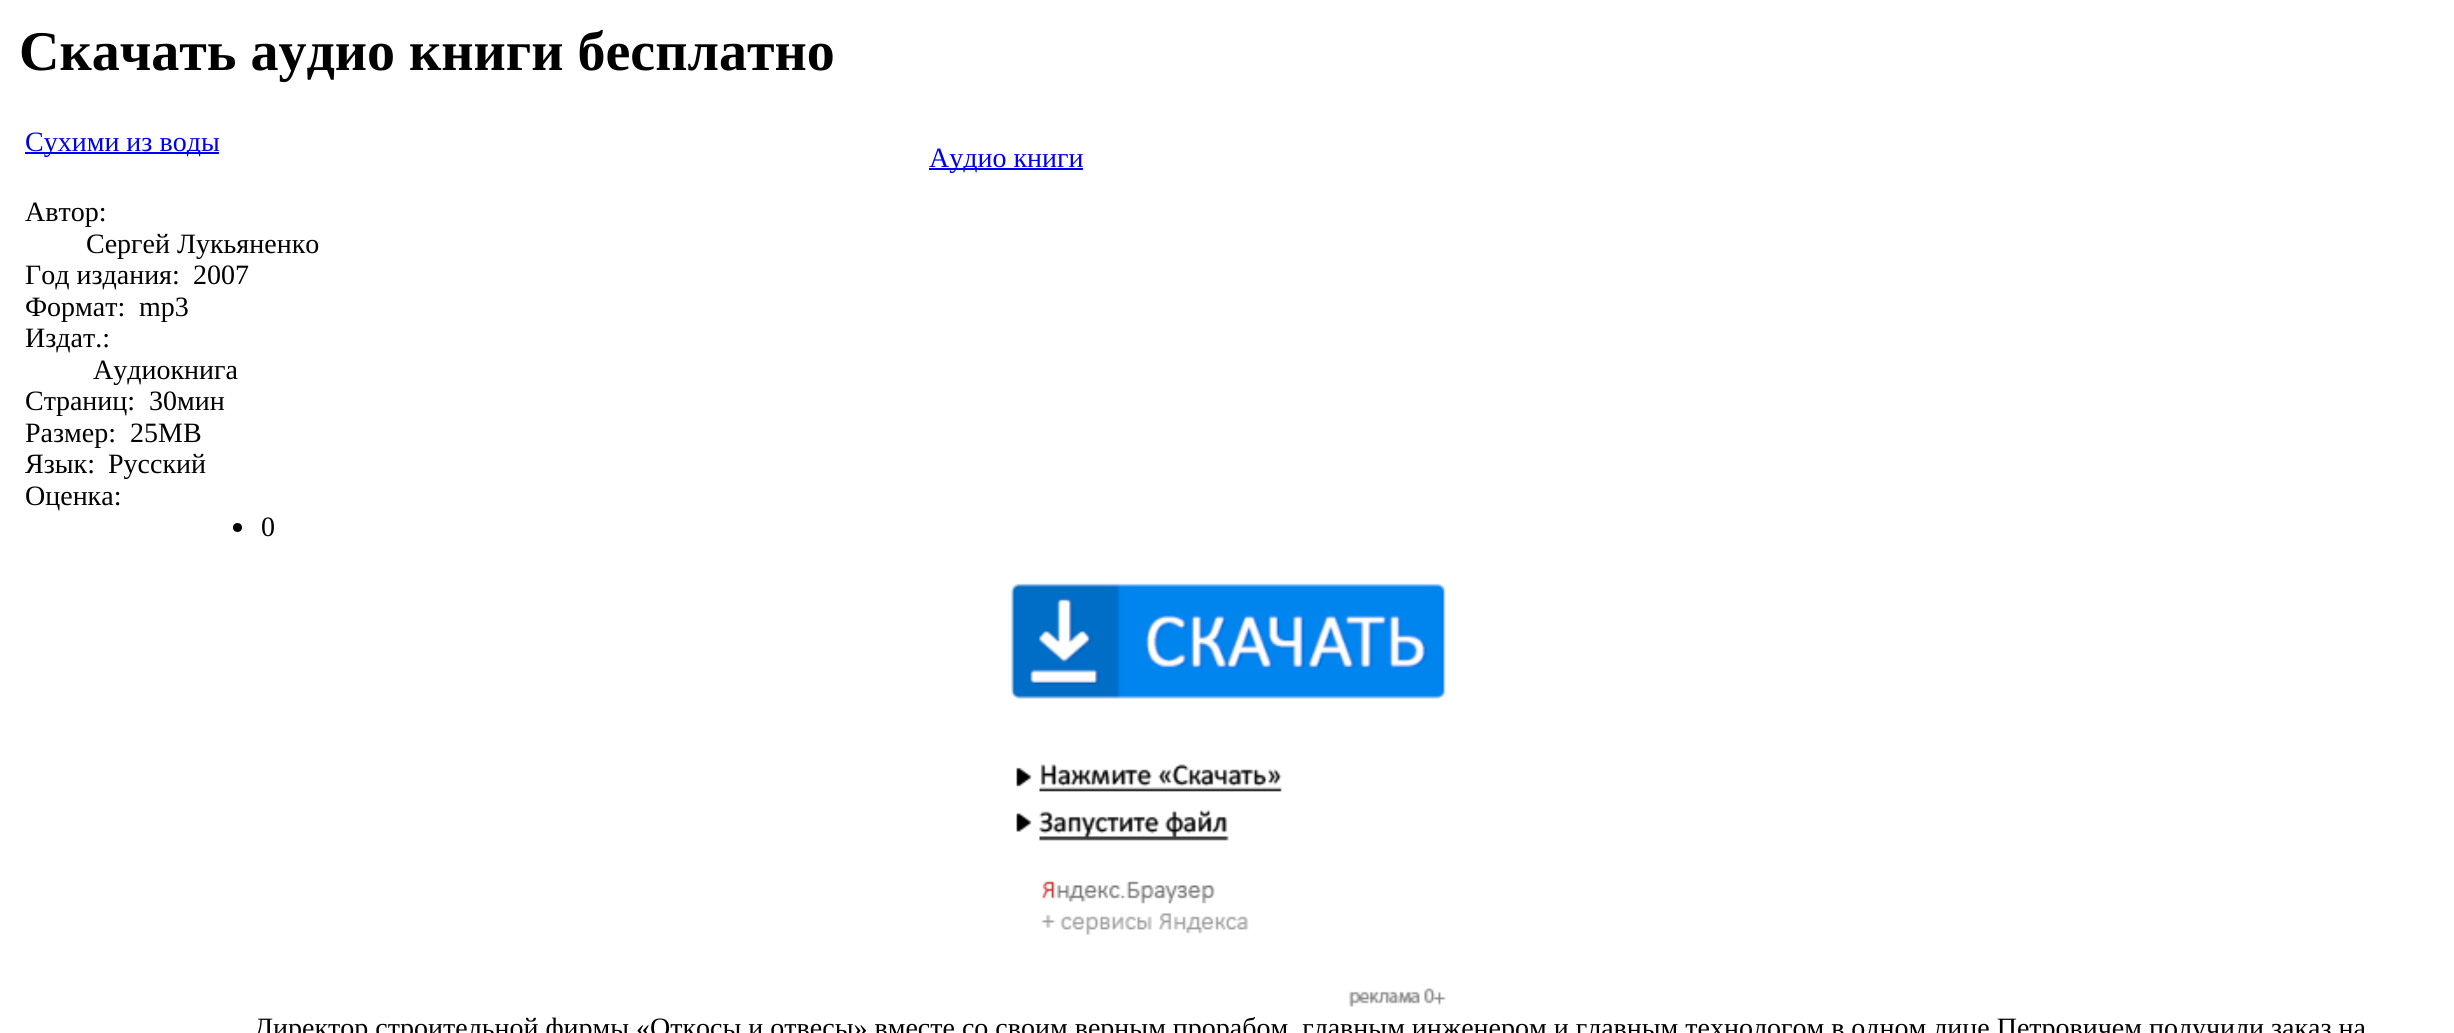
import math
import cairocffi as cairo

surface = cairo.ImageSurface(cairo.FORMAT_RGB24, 2454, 1033)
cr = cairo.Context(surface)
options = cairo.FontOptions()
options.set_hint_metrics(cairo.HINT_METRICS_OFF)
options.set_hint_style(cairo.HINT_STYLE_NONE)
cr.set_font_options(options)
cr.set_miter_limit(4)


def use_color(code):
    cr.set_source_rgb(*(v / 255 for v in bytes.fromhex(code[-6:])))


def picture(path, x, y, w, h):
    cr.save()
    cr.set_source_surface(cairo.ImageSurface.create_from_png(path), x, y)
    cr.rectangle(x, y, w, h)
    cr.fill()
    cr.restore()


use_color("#ffffff")
cr.paint()
cr.select_font_face("Liberation Serif", cairo.FONT_SLANT_NORMAL, cairo.FONT_WEIGHT_BOLD)
cr.set_font_size(56)
use_color("#000000")
cr.move_to(19, 70)
cr.show_text("Скачать аудио книги бесплатно")
use_color("#0000ee")
cr.rectangle(25, 152, 194, 2)
cr.fill()
cr.select_font_face("Liberation Serif")
cr.set_font_size(28)
cr.move_to(25, 151)
cr.show_text("Сухими из воды")
cr.rectangle(929, 168, 154, 2)
cr.fill()
cr.move_to(929, 167)
cr.show_text("Аудио книги")
use_color("#000000")
cr.move_to(25, 221)
cr.show_text("Автор:")
cr.move_to(86, 253)
cr.show_text("Сергей Лукьяненко")
cr.move_to(25, 284)
cr.show_text("Год издания:")
cr.move_to(193, 284)
cr.show_text("2007")
cr.move_to(25, 316)
cr.show_text("Формат:")
cr.move_to(139, 316)
cr.show_text("mp3")
cr.move_to(25, 347)
cr.show_text("Издат.:")
cr.move_to(93, 379)
cr.show_text("Аудиокнига")
cr.move_to(25, 410)
cr.show_text("Страниц:")
cr.move_to(149, 410)
cr.show_text("30мин")
cr.move_to(25, 442)
cr.show_text("Размер:")
cr.move_to(130, 442)
cr.show_text("25МВ")
cr.move_to(25, 473)
cr.show_text("Язык:")
cr.move_to(108, 473)
cr.show_text("Русский")
cr.move_to(25, 505)
cr.show_text("Оценка:")
cr.new_path()
cr.arc(237.5, 527.5, 4.5, 0, 2 * math.pi)
cr.fill()
cr.move_to(261, 536)
cr.show_text("0")
picture("img1.png", 1010, 582, 436, 425)
cr.move_to(254, 1037)
cr.show_text("Директор строительной фирмы «Откосы и отвесы» вместе со своим верным прорабом, главным инженером и главным технологом в одном лице Петровичем получили заказ на")
surface.write_to_png("result.png")
